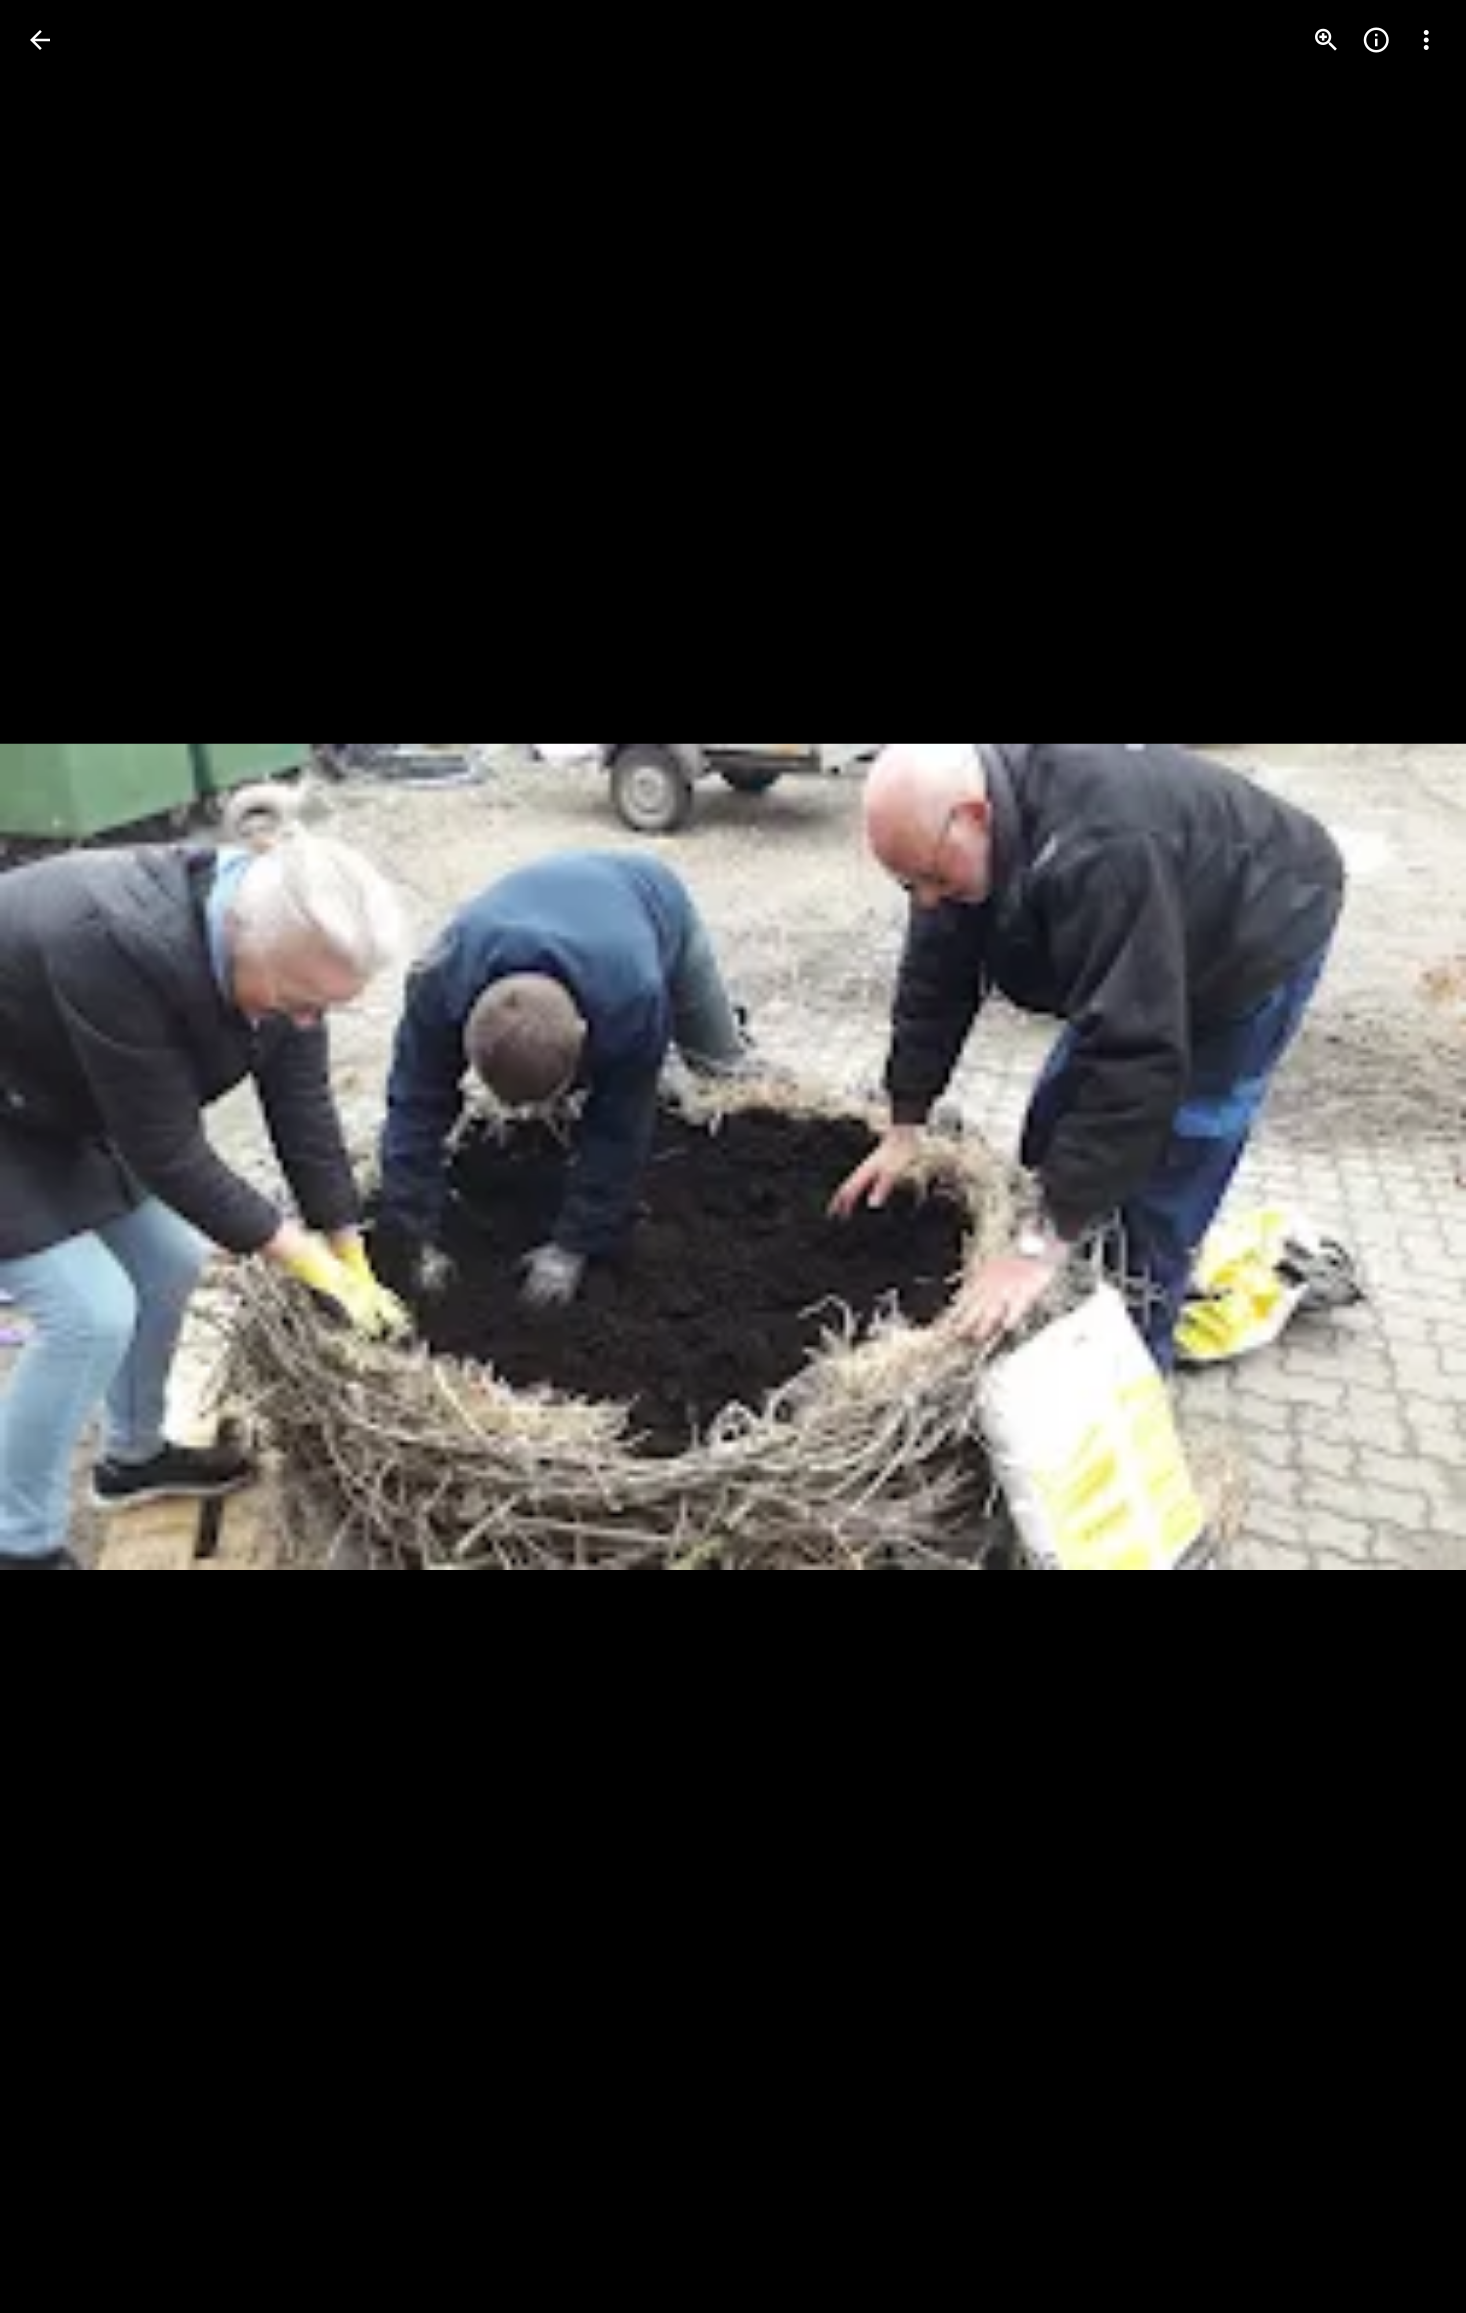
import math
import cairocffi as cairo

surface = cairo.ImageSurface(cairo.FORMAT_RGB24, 1466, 2313)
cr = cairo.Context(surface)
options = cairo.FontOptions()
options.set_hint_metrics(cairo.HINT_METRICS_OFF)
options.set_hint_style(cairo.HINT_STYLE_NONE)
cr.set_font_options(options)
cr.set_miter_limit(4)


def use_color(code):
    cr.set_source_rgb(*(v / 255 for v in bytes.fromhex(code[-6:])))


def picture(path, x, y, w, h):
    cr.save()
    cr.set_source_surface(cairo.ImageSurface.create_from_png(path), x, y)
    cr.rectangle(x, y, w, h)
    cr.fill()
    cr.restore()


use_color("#000000")
cr.paint()
picture("img1.png", 30, 30, 20, 20)
picture("img2.png", 1315, 28, 22, 23)
picture("img3.png", 1363, 27, 26, 26)
picture("img4.png", 1423, 30, 6, 20)
picture("img5.png", 0, 743, 1466, 827)
surface.write_to_png("result.png")
